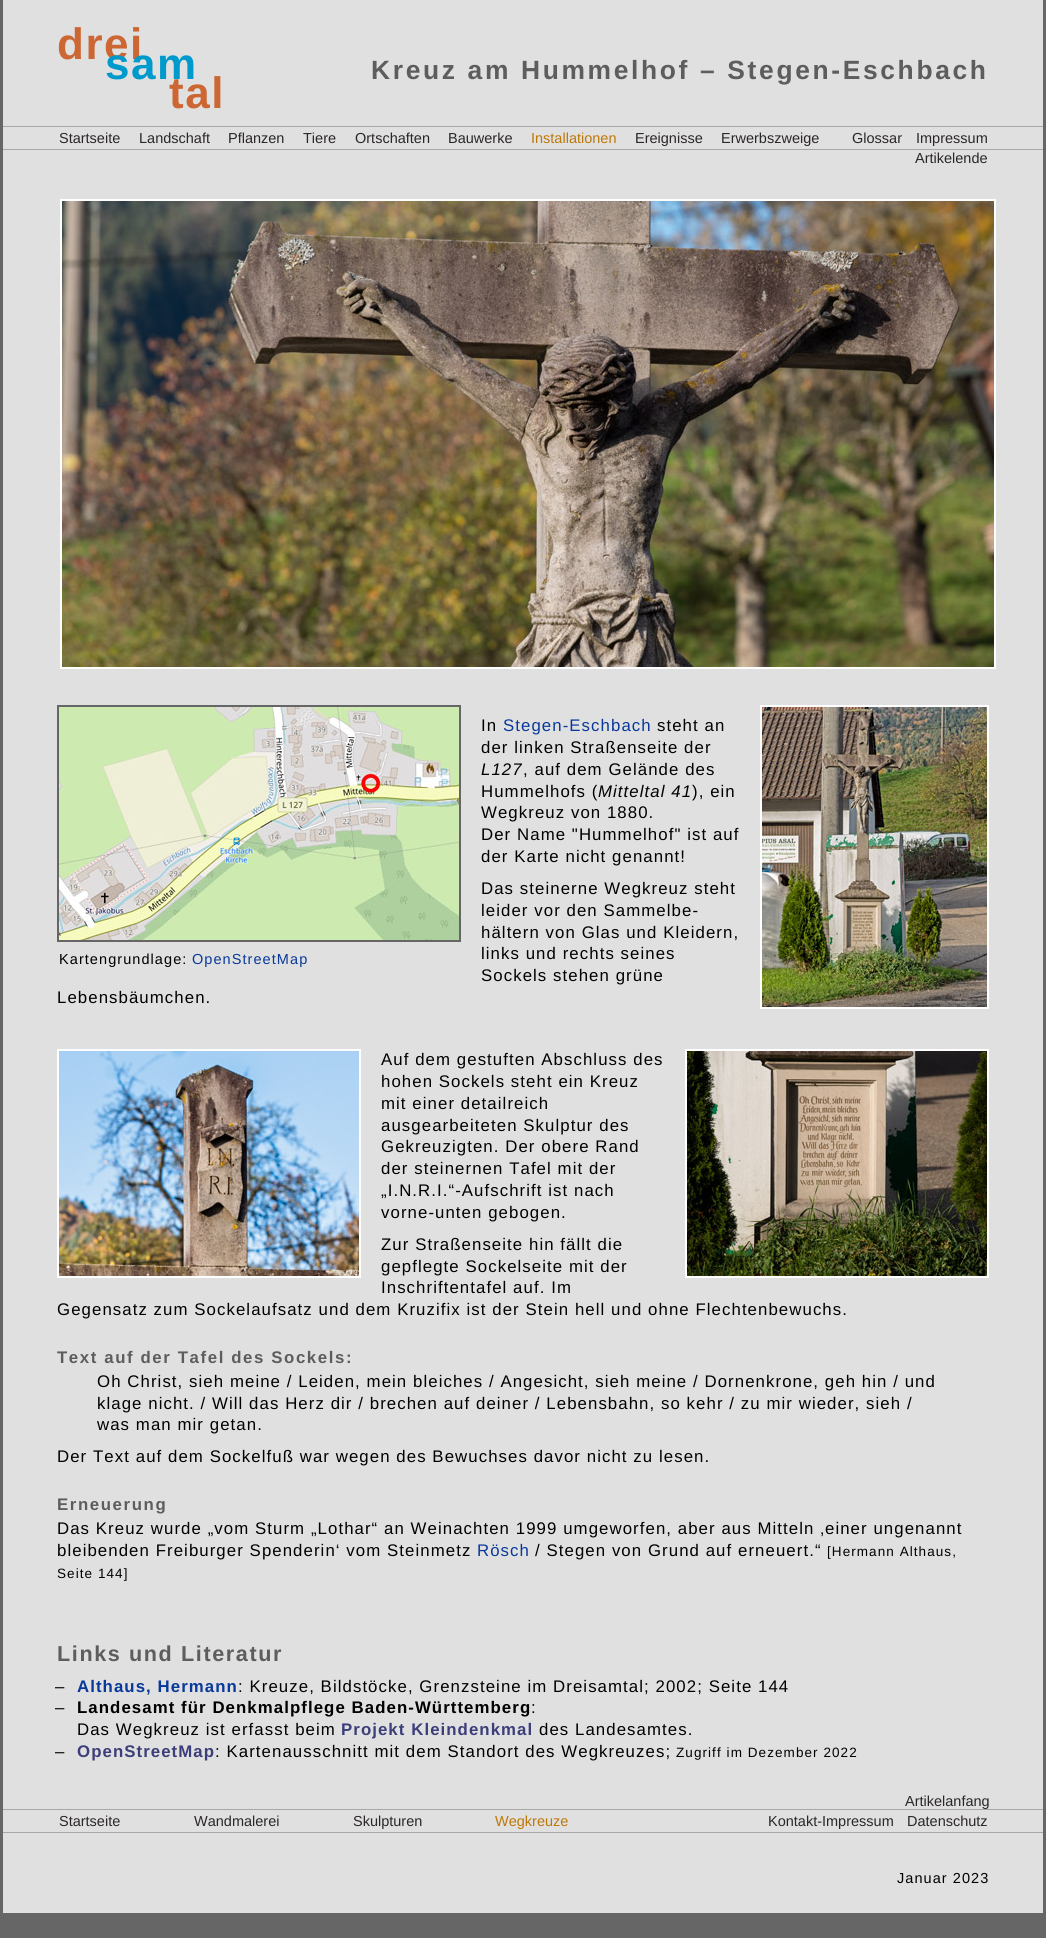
import math
import cairocffi as cairo

surface = cairo.ImageSurface(cairo.FORMAT_RGB24, 1046, 1938)
cr = cairo.Context(surface)
options = cairo.FontOptions()
options.set_hint_metrics(cairo.HINT_METRICS_OFF)
options.set_hint_style(cairo.HINT_STYLE_NONE)
cr.set_font_options(options)
cr.set_miter_limit(4)


def use_color(code):
    cr.set_source_rgb(*(v / 255 for v in bytes.fromhex(code[-6:])))


def spaced_text(x, y, s, letter, word):
    cr.move_to(x, y)
    for ch in s:
        cr.show_text(ch)
        cr.rel_move_to(letter + word * (ch == ' '), 0)


def picture(path, x, y, w, h):
    cr.save()
    cr.set_source_surface(cairo.ImageSurface.create_from_png(path), x, y)
    cr.rectangle(x, y, w, h)
    cr.fill()
    cr.restore()


use_color("#666666")
cr.paint()
use_color("#e0e0e0")
cr.rectangle(3, 0, 1040, 1913)
cr.fill()
cr.select_font_face("Liberation Sans", cairo.FONT_SLANT_NORMAL, cairo.FONT_WEIGHT_BOLD)
cr.set_font_size(44)
use_color("#cc6633")
spaced_text(57, 59, "drei", 1.5, 0)
use_color("#0099cc")
spaced_text(105, 79, "sam", 1.5, 0)
use_color("#cc6633")
spaced_text(169, 108, "tal", 1.5, 0)
cr.set_font_size(26.4)
use_color("#5d5d5d")
spaced_text(371, 79, "Kreuz am Hummelhof – Stegen-Eschbach", 2.65, 0)
use_color("#a7a7a7")
cr.rectangle(3, 126, 1040, 1)
cr.fill()
cr.select_font_face("Liberation Sans")
cr.set_font_size(14.5)
use_color("#2b2727")
cr.move_to(59, 143)
cr.show_text("Startseite")
cr.move_to(139, 143)
cr.show_text("Landschaft")
cr.move_to(228, 143)
cr.show_text("Pflanzen")
cr.move_to(303, 143)
cr.show_text("Tiere")
cr.move_to(355, 143)
cr.show_text("Ortschaften")
cr.move_to(448, 143)
cr.show_text("Bauwerke")
use_color("#be7808")
cr.move_to(531, 143)
cr.show_text("Installationen")
use_color("#2b2727")
cr.move_to(635, 143)
cr.show_text("Ereignisse")
cr.move_to(721, 143)
cr.show_text("Erwerbszweige")
cr.move_to(852, 143)
cr.show_text("Glossar")
cr.move_to(916, 143)
cr.show_text("Impressum")
use_color("#a7a7a7")
cr.rectangle(3, 149, 1040, 1)
cr.fill()
use_color("#2b2727")
cr.move_to(915, 163)
cr.show_text("Artikelende")
cr.rectangle(61, 200, 934, 468)
use_color("#ffffff")
cr.stroke()
picture("img1.png", 62, 201, 932, 466)
cr.set_font_size(16.8)
use_color("#000000")
spaced_text(481, 731, "In", 1.07, 0)
use_color("#08399a")
spaced_text(503, 731, "Stegen-Eschbach", 1.07, 0)
use_color("#000000")
spaced_text(657, 731, "steht an", 1.07, 0)
spaced_text(481, 753, "der linken Straßenseite der", 1.07, 0)
cr.select_font_face("Liberation Sans", cairo.FONT_SLANT_ITALIC)
spaced_text(481, 775, "L127", 1.07, 0)
cr.select_font_face("Liberation Sans")
spaced_text(523, 775, ", auf dem Gelände des", 1.07, 0)
spaced_text(481, 797, "Hummelhofs (", 1.07, 0)
cr.select_font_face("Liberation Sans", cairo.FONT_SLANT_ITALIC)
spaced_text(598, 797, "Mitteltal 41", 1.07, 0)
cr.select_font_face("Liberation Sans")
spaced_text(692, 797, "), ein", 1.07, 0)
spaced_text(481, 818, "Wegkreuz von 1880.", 1.07, 0)
spaced_text(481, 840, "Der Name \"Hummelhof\" ist auf", 1.07, 0)
spaced_text(481, 862, "der Karte nicht genannt!", 1.07, 0)
cr.rectangle(761, 706, 227, 302)
use_color("#ffffff")
cr.stroke()
picture("img2.png", 762, 707, 225, 300)
use_color("#000000")
spaced_text(481, 894, "Das steinerne Wegkreuz steht", 1.07, 0)
spaced_text(481, 916, "leider vor den Sammelbe-", 1.07, 0)
spaced_text(481, 938, "hältern von Glas und Kleidern,", 1.07, 0)
spaced_text(481, 959, "links und rechts seines", 1.07, 0)
spaced_text(481, 981, "Sockels stehen grüne", 1.07, 0)
spaced_text(57, 1003, "Lebensbäumchen.", 1.07, 0)
cr.rectangle(58, 706, 402, 235)
use_color("#666666")
cr.stroke()
picture("img3.png", 59, 707, 400, 233)
cr.set_font_size(14.5)
use_color("#000000")
spaced_text(59, 964, "Kartengrundlage:", 1.07, 0)
use_color("#08399a")
spaced_text(192, 964, "OpenStreetMap", 1.07, 0)
cr.rectangle(58, 1050, 302, 227)
use_color("#ffffff")
cr.stroke()
picture("img4.png", 59, 1051, 300, 225)
cr.set_font_size(16.8)
use_color("#000000")
spaced_text(381, 1065, "Auf dem gestuften Abschluss des", 1.07, 0)
spaced_text(381, 1087, "hohen Sockels steht ein Kreuz", 1.07, 0)
spaced_text(381, 1109, "mit einer detailreich", 1.07, 0)
spaced_text(381, 1131, "ausgearbeiteten Skulptur des", 1.07, 0)
spaced_text(381, 1152, "Gekreuzigten. Der obere Rand", 1.07, 0)
spaced_text(381, 1174, "der steinernen Tafel mit der", 1.07, 0)
spaced_text(381, 1196, "„I.N.R.I.“-Aufschrift ist nach", 1.07, 0)
spaced_text(381, 1218, "vorne-unten gebogen.", 1.07, 0)
cr.rectangle(686, 1050, 302, 227)
use_color("#ffffff")
cr.stroke()
picture("img5.png", 687, 1051, 300, 225)
use_color("#000000")
spaced_text(381, 1250, "Zur Straßenseite hin fällt die", 1.07, 0)
spaced_text(381, 1272, "gepflegte Sockelseite mit der", 1.07, 0)
spaced_text(381, 1293, "Inschriftentafel auf. Im", 1.07, 0)
spaced_text(57, 1315, "Gegensatz zum Sockelaufsatz und dem Kruzifix ist der Stein hell und ohne Flechtenbewuchs.", 1.07, 0)
cr.select_font_face("Liberation Sans", cairo.FONT_SLANT_NORMAL, cairo.FONT_WEIGHT_BOLD)
use_color("#5d5d5d")
spaced_text(57, 1363, "Text auf der Tafel des Sockels:", 1.6, 0)
cr.select_font_face("Liberation Sans")
use_color("#000000")
spaced_text(97, 1387, "Oh Christ, sieh meine / Leiden, mein bleiches / Angesicht, sieh meine / Dornenkrone, geh hin / und", 1.07, 0)
spaced_text(97, 1409, "klage nicht. / Will das Herz dir / brechen auf deiner / Lebensbahn, so kehr / zu mir wieder, sieh /", 1.07, 0)
spaced_text(97, 1430, "was man mir getan.", 1.07, 0)
spaced_text(57, 1462, "Der Text auf dem Sockelfuß war wegen des Bewuchses davor nicht zu lesen.", 1.07, 0)
cr.select_font_face("Liberation Sans", cairo.FONT_SLANT_NORMAL, cairo.FONT_WEIGHT_BOLD)
use_color("#5d5d5d")
spaced_text(57, 1510, "Erneuerung", 1.6, 0)
cr.select_font_face("Liberation Sans")
use_color("#000000")
spaced_text(57, 1534, "Das Kreuz wurde „vom Sturm „Lothar“ an Weinachten 1999 umgeworfen, aber aus Mitteln ‚einer ungenannt", 1.07, 0)
spaced_text(57, 1556, "bleibenden Freiburger Spenderin‘ vom Steinmetz", 1.07, 0)
use_color("#08399a")
spaced_text(477, 1556, "Rösch", 1.07, 0)
use_color("#000000")
spaced_text(535, 1556, "/ Stegen von Grund auf erneuert.“", 1.07, 0)
cr.set_font_size(13.5)
spaced_text(827, 1556, "[Hermann Althaus,", 1.07, 0)
spaced_text(57, 1578, "Seite 144]", 1.07, 0)
cr.select_font_face("Liberation Sans", cairo.FONT_SLANT_NORMAL, cairo.FONT_WEIGHT_BOLD)
cr.set_font_size(21.6)
use_color("#5d5d5d")
spaced_text(57, 1661, "Links und Literatur", 1.6, 0)
cr.select_font_face("Liberation Sans")
cr.set_font_size(16.8)
use_color("#000000")
spaced_text(55, 1692, "–", 1.07, 0)
cr.select_font_face("Liberation Sans", cairo.FONT_SLANT_NORMAL, cairo.FONT_WEIGHT_BOLD)
use_color("#08399a")
spaced_text(77, 1692, "Althaus, Hermann", 1.07, 0)
cr.select_font_face("Liberation Sans")
use_color("#000000")
spaced_text(238, 1692, ": Kreuze, Bildstöcke, Grenzsteine im Dreisamtal; 2002; Seite 144", 1.07, 0)
spaced_text(55, 1713, "–", 1.07, 0)
cr.select_font_face("Liberation Sans", cairo.FONT_SLANT_NORMAL, cairo.FONT_WEIGHT_BOLD)
spaced_text(77, 1713, "Landesamt für Denkmalpflege Baden-Württemberg", 1.07, 0)
cr.select_font_face("Liberation Sans")
spaced_text(531, 1713, ":", 1.07, 0)
spaced_text(77, 1735, "Das Wegkreuz ist erfasst beim", 1.07, 0)
cr.select_font_face("Liberation Sans", cairo.FONT_SLANT_NORMAL, cairo.FONT_WEIGHT_BOLD)
use_color("#3c3e79")
spaced_text(341, 1735, "Projekt Kleindenkmal", 1.07, 0)
cr.select_font_face("Liberation Sans")
use_color("#000000")
spaced_text(539, 1735, "des Landesamtes.", 1.07, 0)
spaced_text(55, 1757, "–", 1.07, 0)
cr.select_font_face("Liberation Sans", cairo.FONT_SLANT_NORMAL, cairo.FONT_WEIGHT_BOLD)
use_color("#3c3e79")
spaced_text(77, 1757, "OpenStreetMap", 1.07, 0)
cr.select_font_face("Liberation Sans")
use_color("#000000")
spaced_text(215, 1757, ": Kartenausschnitt mit dem Standort des Wegkreuzes;", 1.07, 0)
cr.set_font_size(13.5)
spaced_text(676, 1757, "Zugriff im Dezember 2022", 1.07, 0)
cr.set_font_size(14.5)
use_color("#2b2727")
cr.move_to(905, 1806)
cr.show_text("Artikelanfang")
use_color("#a7a7a7")
cr.rectangle(3, 1809, 1040, 1)
cr.fill()
use_color("#2b2727")
cr.move_to(59, 1826)
cr.show_text("Startseite")
cr.move_to(194, 1826)
cr.show_text("Wandmalerei")
cr.move_to(353, 1826)
cr.show_text("Skulpturen")
use_color("#be7808")
cr.move_to(495, 1826)
cr.show_text("Wegkreuze")
use_color("#2b2727")
cr.move_to(768, 1826)
cr.show_text("Kontakt-Impressum")
cr.move_to(907, 1826)
cr.show_text("Datenschutz")
use_color("#a7a7a7")
cr.rectangle(3, 1832, 1040, 1)
cr.fill()
use_color("#000000")
spaced_text(897, 1883, "Januar 2023", 1.07, 0)
surface.write_to_png("result.png")
